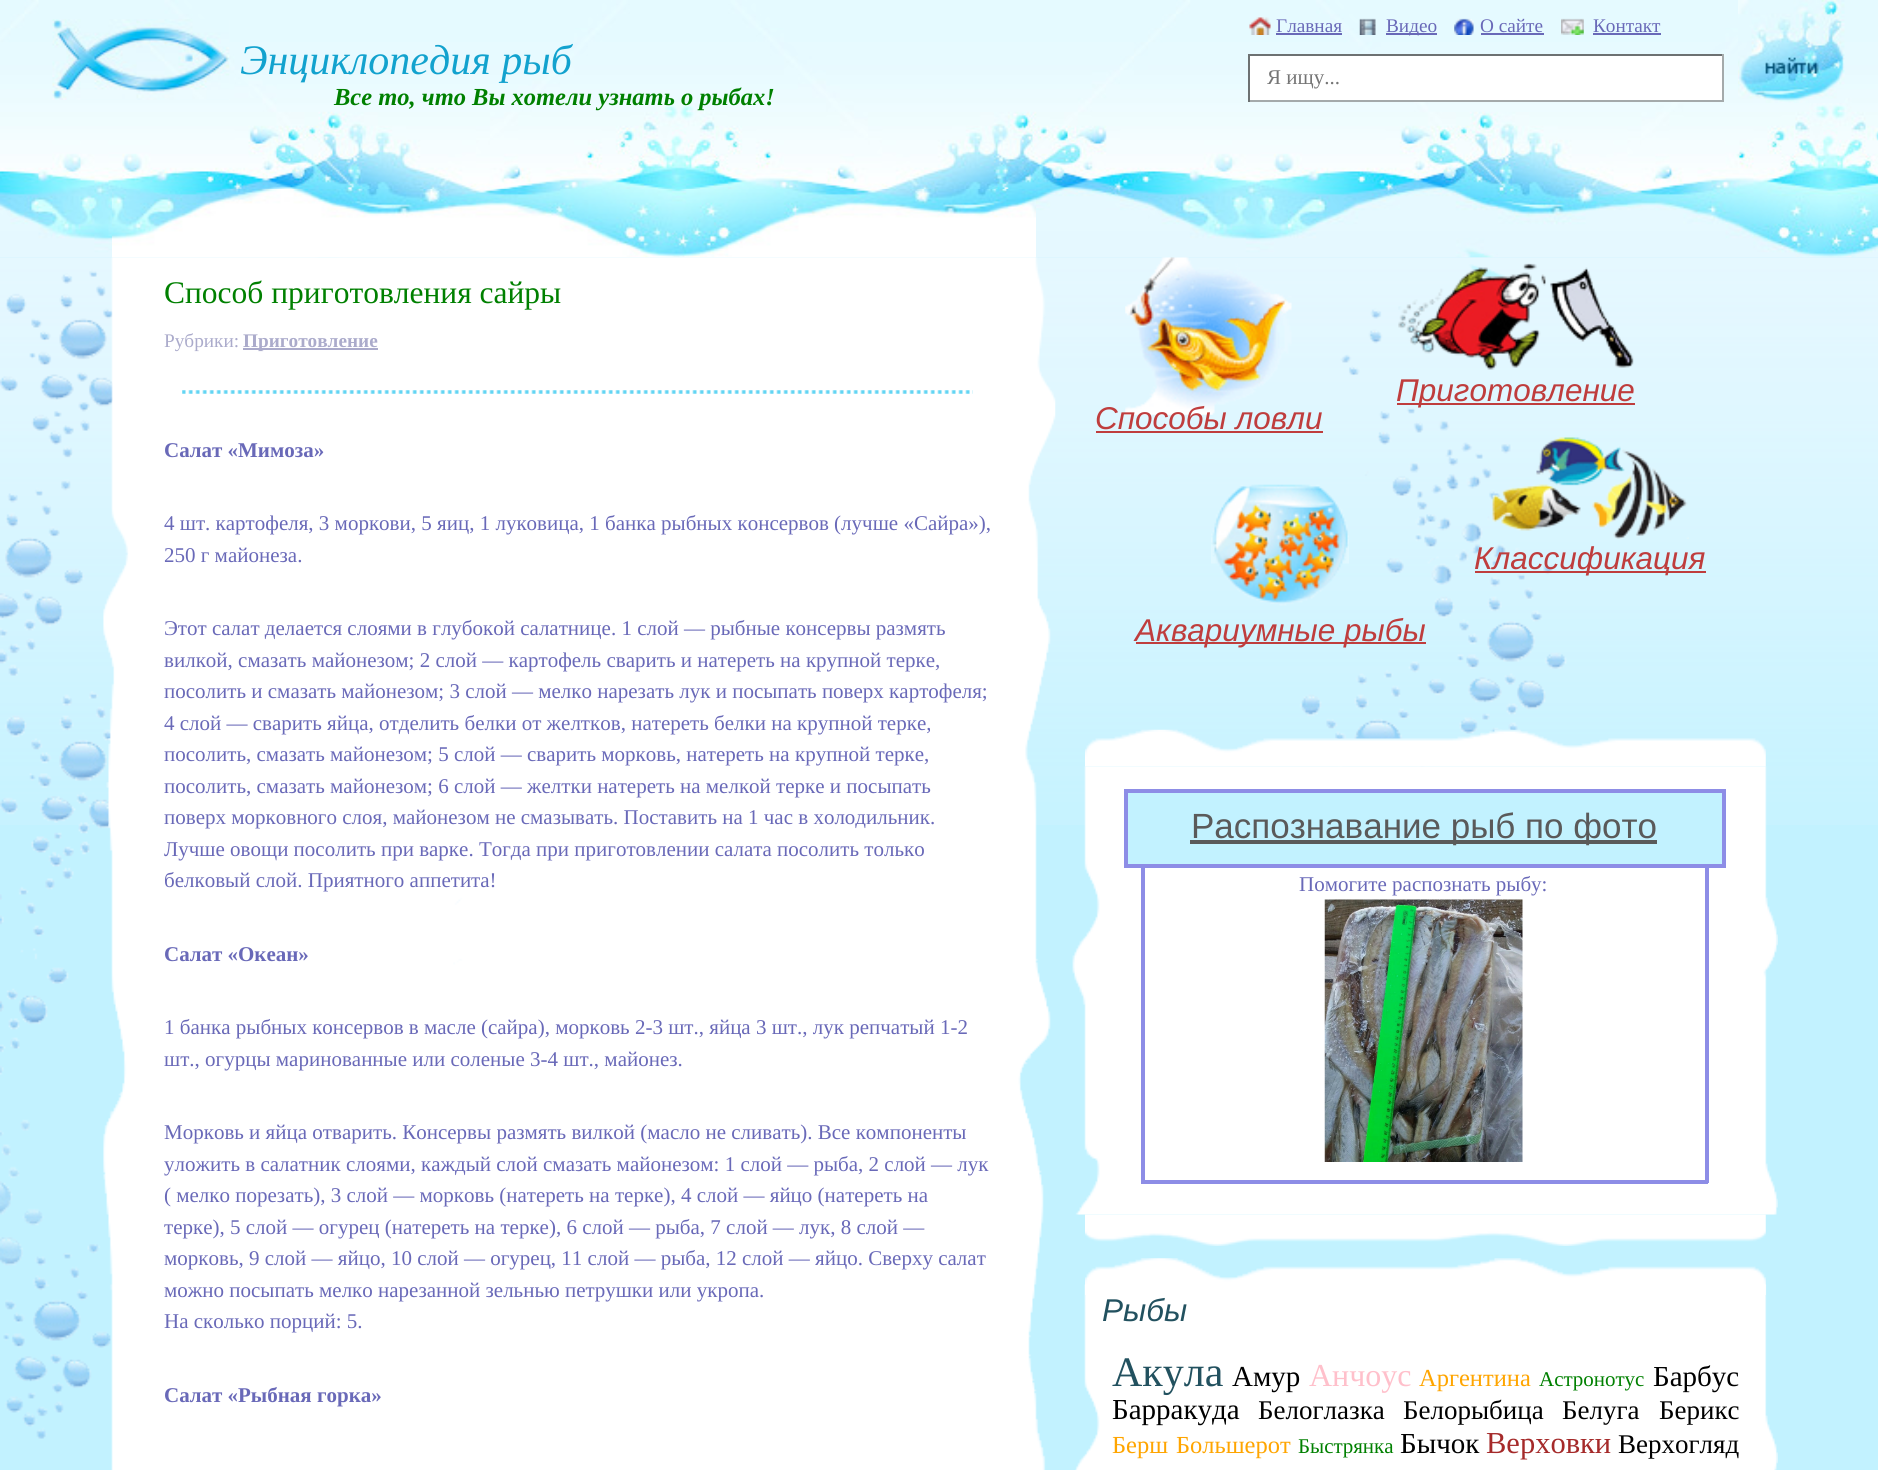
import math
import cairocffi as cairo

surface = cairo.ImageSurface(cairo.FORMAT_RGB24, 1878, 1470)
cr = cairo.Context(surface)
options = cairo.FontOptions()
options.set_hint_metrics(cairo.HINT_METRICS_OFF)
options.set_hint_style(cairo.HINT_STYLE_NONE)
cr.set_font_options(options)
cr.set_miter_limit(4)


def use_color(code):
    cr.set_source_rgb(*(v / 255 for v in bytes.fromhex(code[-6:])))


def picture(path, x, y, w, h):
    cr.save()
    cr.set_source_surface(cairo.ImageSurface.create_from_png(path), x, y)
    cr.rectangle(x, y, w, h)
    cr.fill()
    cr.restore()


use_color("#c2f2ff")
cr.paint()
picture("img1.png", 0, 257, 1878, 568)
picture("img2.png", 0, 269, 113, 1170)
picture("img3.png", 0, 0, 1878, 258)
picture("img4.png", 1249, 17, 22, 18)
cr.select_font_face("Liberation Serif")
cr.set_font_size(19.25)
use_color("#6969b8")
cr.move_to(1276, 32)
cr.show_text("Главная")
cr.rectangle(1276, 33, 66, 2)
cr.fill()
picture("img5.png", 1359, 18, 17, 17)
cr.rectangle(1386, 33, 51, 2)
cr.fill()
cr.move_to(1386, 32)
cr.show_text("Видео")
picture("img6.png", 1454, 18, 20, 17)
cr.move_to(1480, 32)
cr.show_text("О сайте")
cr.rectangle(1481, 33, 63, 2)
cr.fill()
picture("img7.png", 1561, 18, 23, 17)
cr.move_to(1593, 32)
cr.show_text("Контакт")
cr.rectangle(1593, 33, 68, 2)
cr.fill()
picture("img8.png", 52, 19, 178, 81)
cr.select_font_face("Liberation Serif", cairo.FONT_SLANT_ITALIC)
cr.set_font_size(42)
use_color("#12a2ce")
cr.move_to(240, 74)
cr.show_text("Энциклопедия рыб")
cr.select_font_face("Liberation Serif", cairo.FONT_SLANT_ITALIC, cairo.FONT_WEIGHT_BOLD)
cr.set_font_size(24.5)
use_color("#008000")
cr.move_to(334, 105)
cr.show_text("Все то, что Вы хотели узнать о рыбах!")
use_color("#ffffff")
cr.rectangle(1250, 56, 472, 44)
cr.fill()
use_color("#6d7172")
cr.rectangle(1248, 54, 476, 2)
cr.fill()
use_color("#a4aaab")
cr.rectangle(1722, 54, 2, 48)
cr.fill()
cr.rectangle(1248, 100, 476, 2)
cr.fill()
use_color("#6d7172")
cr.rectangle(1248, 54, 2, 48)
cr.fill()
cr.select_font_face("Liberation Serif")
cr.set_font_size(21)
use_color("#757575")
cr.move_to(1267, 84)
cr.show_text("Я ищу...")
picture("img9.png", 1738, 0, 107, 103)
picture("img10.png", 112, 189, 924, 69)
picture("img11.png", 103, 257, 953, 1213)
cr.set_font_size(31.5)
use_color("#008000")
cr.move_to(164, 303)
cr.show_text("Способ приготовления сайры")
cr.set_font_size(19.25)
use_color("#ababcb")
cr.move_to(164, 347)
cr.show_text("Рубрики:")
cr.rectangle(243, 348, 135, 2)
cr.fill()
cr.select_font_face("Liberation Serif", cairo.FONT_SLANT_NORMAL, cairo.FONT_WEIGHT_BOLD)
cr.move_to(243, 347)
cr.show_text("Приготовление")
picture("img12.png", 182, 390, 791, 4)
cr.set_font_size(21)
use_color("#6969b8")
cr.move_to(164, 457)
cr.show_text("Салат «Мимоза»")
cr.select_font_face("Liberation Serif")
cr.move_to(164, 530)
cr.show_text("4 шт. картофеля, 3 моркови, 5 яиц, 1 луковица, 1 банка рыбных консервов (лучше «Сайра»),")
cr.move_to(164, 562)
cr.show_text("250 г майонеза.")
cr.move_to(164, 635)
cr.show_text("Этот салат делается слоями в глубокой салатнице. 1 слой — рыбные консервы размять")
cr.move_to(164, 667)
cr.show_text("вилкой, смазать майонезом; 2 слой — картофель сварить и натереть на крупной терке,")
cr.move_to(164, 698)
cr.show_text("посолить и смазать майонезом; 3 слой — мелко нарезать лук и посыпать поверх картофеля;")
cr.move_to(164, 730)
cr.show_text("4 слой — сварить яйца, отделить белки от желтков, натереть белки на крупной терке,")
cr.move_to(164, 761)
cr.show_text("посолить, смазать майонезом; 5 слой — сварить морковь, натереть на крупной терке,")
cr.move_to(164, 793)
cr.show_text("посолить, смазать майонезом; 6 слой — желтки натереть на мелкой терке и посыпать")
cr.move_to(164, 824)
cr.show_text("поверх морковного слоя, майонезом не смазывать. Поставить на 1 час в холодильник.")
cr.move_to(164, 856)
cr.show_text("Лучше овощи посолить при варке. Тогда при приготовлении салата посолить только")
cr.move_to(164, 887)
cr.show_text("белковый слой. Приятного аппетита!")
cr.select_font_face("Liberation Serif", cairo.FONT_SLANT_NORMAL, cairo.FONT_WEIGHT_BOLD)
cr.move_to(164, 961)
cr.show_text("Салат «Океан»")
cr.select_font_face("Liberation Serif")
cr.move_to(164, 1034)
cr.show_text("1 банка рыбных консервов в масле (сайра), морковь 2-3 шт., яйца 3 шт., лук репчатый 1-2")
cr.move_to(164, 1066)
cr.show_text("шт., огурцы маринованные или соленые 3-4 шт., майонез.")
cr.move_to(164, 1139)
cr.show_text("Морковь и яйца отварить. Консервы размять вилкой (масло не сливать). Все компоненты")
cr.move_to(164, 1171)
cr.show_text("уложить в салатник слоями, каждый слой смазать майонезом: 1 слой — рыба, 2 слой — лук")
cr.move_to(164, 1202)
cr.show_text("( мелко порезать), 3 слой — морковь (натереть на терке), 4 слой — яйцо (натереть на")
cr.move_to(164, 1234)
cr.show_text("терке), 5 слой — огурец (натереть на терке), 6 слой — рыба, 7 слой — лук, 8 слой —")
cr.move_to(164, 1265)
cr.show_text("морковь, 9 слой — яйцо, 10 слой — огурец, 11 слой — рыба, 12 слой — яйцо. Сверху салат")
cr.move_to(164, 1297)
cr.show_text("можно посыпать мелко нарезанной зельнью петрушки или укропа.")
cr.move_to(164, 1328)
cr.show_text("На сколько порций: 5.")
cr.select_font_face("Liberation Serif", cairo.FONT_SLANT_NORMAL, cairo.FONT_WEIGHT_BOLD)
cr.move_to(164, 1402)
cr.show_text("Салат «Рыбная горка»")
picture("img13.png", 1299, 306, 268, 461)
picture("img14.png", 1398, 263, 236, 107)
use_color("#bf3d3d")
cr.rectangle(1397, 403, 238, 2)
cr.fill()
cr.select_font_face("Liberation Sans", cairo.FONT_SLANT_ITALIC)
cr.set_font_size(31.5)
cr.move_to(1396, 401)
cr.show_text("Приготовление")
picture("img15.png", 1125, 257, 167, 158)
cr.move_to(1095, 429)
cr.show_text("Способы ловли")
cr.rectangle(1096, 431, 227, 2)
cr.fill()
picture("img16.png", 1492, 437, 197, 102)
cr.rectangle(1475, 571, 231, 2)
cr.fill()
cr.move_to(1474, 569)
cr.show_text("Классификация")
picture("img17.png", 1211, 484, 138, 122)
cr.rectangle(1136, 642, 290, 2)
cr.fill()
cr.move_to(1135, 641)
cr.show_text("Аквариумные рыбы")
picture("img18.png", 1085, 729, 681, 38)
picture("img19.png", 1085, 1214, 681, 32)
picture("img20.png", 1072, 766, 706, 449)
use_color("#c2f2ff")
cr.rectangle(1126, 791, 598, 75)
cr.fill_preserve()
use_color("#8d8de6")
cr.set_line_width(4)
cr.stroke()
use_color("#5a5a5a")
cr.rectangle(1190, 840, 467, 4)
cr.fill()
cr.select_font_face("Liberation Sans")
cr.set_font_size(35)
cr.move_to(1191, 838)
cr.show_text("Распознавание рыб по фото")
use_color("#8d8de6")
cr.rectangle(1705, 868, 4, 315)
cr.fill()
cr.rectangle(1141, 1180, 567, 4)
cr.fill()
cr.rectangle(1141, 868, 4, 315)
cr.fill()
cr.select_font_face("Liberation Serif")
cr.set_font_size(21)
use_color("#6969b8")
cr.move_to(1299, 891)
cr.show_text("Помогите распознать рыбу:")
picture("img21.png", 1324, 899, 199, 263)
picture("img22.png", 1085, 1258, 681, 37)
picture("img23.png", 1075, 1284, 703, 186)
cr.select_font_face("Liberation Sans", cairo.FONT_SLANT_ITALIC)
cr.set_font_size(31.5)
use_color("#22515f")
cr.move_to(1102, 1321)
cr.show_text("Рыбы")
cr.select_font_face("Liberation Serif")
cr.set_font_size(42)
cr.move_to(1112, 1386)
cr.show_text("Акула")
cr.set_font_size(29)
use_color("#000000")
cr.move_to(1232, 1386)
cr.show_text("Амур")
cr.set_font_size(32)
use_color("#ffc0cb")
cr.move_to(1309, 1386)
cr.show_text("Анчоус")
cr.set_font_size(24.5)
use_color("#ffa500")
cr.move_to(1419, 1386)
cr.show_text("Аргентина")
cr.set_font_size(21)
use_color("#008000")
cr.move_to(1539, 1386)
cr.show_text("Астронотус")
cr.set_font_size(29)
use_color("#000000")
cr.move_to(1653, 1386)
cr.show_text("Барбус")
cr.move_to(1112, 1419)
cr.show_text("Барракуда")
cr.set_font_size(27)
cr.move_to(1258, 1419)
cr.show_text("Белоглазка")
cr.move_to(1403, 1419)
cr.show_text("Белорыбица")
cr.move_to(1562, 1419)
cr.show_text("Белуга")
cr.move_to(1659, 1419)
cr.show_text("Берикс")
cr.set_font_size(24.5)
use_color("#ffa500")
cr.move_to(1112, 1453)
cr.show_text("Берш")
cr.move_to(1176, 1453)
cr.show_text("Большерот")
cr.set_font_size(21)
use_color("#008000")
cr.move_to(1298, 1453)
cr.show_text("Быстрянка")
cr.set_font_size(29)
use_color("#000000")
cr.move_to(1400, 1453)
cr.show_text("Бычок")
cr.set_font_size(30.5)
use_color("#a52a2a")
cr.move_to(1486, 1453)
cr.show_text("Верховки")
cr.set_font_size(27)
use_color("#000000")
cr.move_to(1618, 1453)
cr.show_text("Верхогляд")
surface.write_to_png("result.png")
